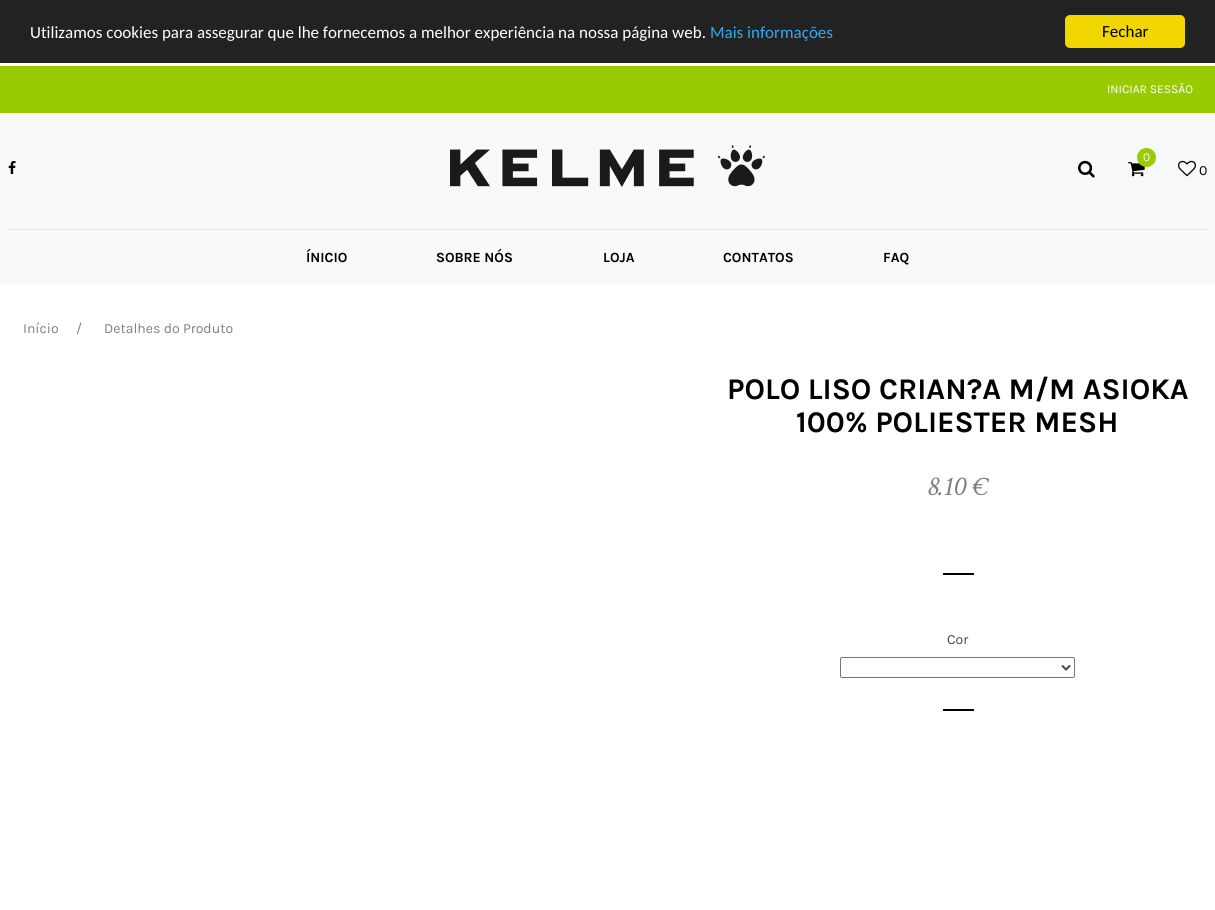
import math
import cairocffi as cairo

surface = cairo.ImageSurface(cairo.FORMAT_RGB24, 1215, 910)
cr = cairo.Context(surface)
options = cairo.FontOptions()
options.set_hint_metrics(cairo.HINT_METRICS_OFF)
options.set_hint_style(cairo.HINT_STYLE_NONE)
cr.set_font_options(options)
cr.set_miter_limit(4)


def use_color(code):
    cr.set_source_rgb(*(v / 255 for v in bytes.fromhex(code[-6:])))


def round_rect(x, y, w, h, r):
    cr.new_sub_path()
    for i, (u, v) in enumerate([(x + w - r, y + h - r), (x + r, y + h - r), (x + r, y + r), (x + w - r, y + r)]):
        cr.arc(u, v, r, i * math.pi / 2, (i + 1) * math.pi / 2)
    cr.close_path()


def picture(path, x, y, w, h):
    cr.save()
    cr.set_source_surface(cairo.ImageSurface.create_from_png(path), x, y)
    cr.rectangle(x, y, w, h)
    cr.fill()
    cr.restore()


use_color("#ffffff")
cr.paint()
use_color("#222222")
cr.rectangle(0, 0, 1215, 63)
cr.fill()
cr.select_font_face("Carlito")
cr.set_font_size(17)
use_color("#ffffff")
cr.move_to(30, 38)
cr.show_text("Utilizamos cookies para assegurar que lhe fornecemos a melhor experiência na nossa página web.")
use_color("#31a8f0")
cr.move_to(710, 38)
cr.show_text("Mais informações")
use_color("#f1d600")
round_rect(1065, 15, 120, 33, 5)
cr.fill()
use_color("#000000")
cr.move_to(1102, 37)
cr.show_text("Fechar")
use_color("#f8f9fb")
cr.rectangle(0, 113, 1215, 172)
cr.fill()
use_color("#99cc00")
cr.rectangle(0, 66, 1215, 47)
cr.fill()
cr.select_font_face("Karla")
cr.set_font_size(12)
use_color("#ffffff")
cr.move_to(1107, 93)
cr.show_text("INICIAR SESSÃO")
picture("img1.png", 8, 161, 8, 13)
picture("img2.png", 450, 145, 315, 42)
picture("img3.png", 1128, 162, 17, 15)
use_color("#99cc00")
cr.arc(1146.5, 157.5, 9.5, 0, 2 * math.pi)
cr.fill()
use_color("#ffffff")
cr.move_to(1143, 161)
cr.show_text("0")
picture("img4.png", 1078, 160, 17, 18)
picture("img5.png", 1178, 160, 18, 17)
cr.set_font_size(14)
use_color("#000000")
cr.move_to(1199, 175)
cr.show_text("0")
use_color("#e5e5e5")
cr.rectangle(8, 229, 1200, 1)
cr.fill()
cr.select_font_face("Karla", cairo.FONT_SLANT_NORMAL, cairo.FONT_WEIGHT_BOLD)
use_color("#000000")
cr.move_to(306, 262)
cr.show_text("ÍNICIO")
cr.move_to(436, 262)
cr.show_text("SOBRE NÓS")
cr.move_to(603, 262)
cr.show_text("LOJA")
cr.move_to(723, 262)
cr.show_text("CONTATOS")
cr.move_to(883, 262)
cr.show_text("FAQ")
cr.select_font_face("Karla")
use_color("#7e7e7e")
cr.move_to(23, 333)
cr.show_text("Início")
cr.move_to(76, 333)
cr.show_text("/")
cr.move_to(104, 333)
cr.show_text("Detalhes do Produto")
cr.select_font_face("Karla", cairo.FONT_SLANT_NORMAL, cairo.FONT_WEIGHT_BOLD)
cr.set_font_size(30)
use_color("#000000")
cr.move_to(727, 399)
cr.show_text("POLO LISO CRIAN?A M/M ASIOKA")
cr.move_to(796, 432)
cr.show_text("100% POLIESTER MESH")
cr.select_font_face("Crimson Text", cairo.FONT_SLANT_ITALIC)
cr.set_font_size(28)
use_color("#7e7e7e")
cr.move_to(927, 495)
cr.show_text("8.10 €")
use_color("#000000")
cr.rectangle(943, 573, 31, 2)
cr.fill()
cr.select_font_face("Karla")
cr.set_font_size(14)
use_color("#464646")
cr.move_to(947, 644)
cr.show_text("Cor")
round_rect(840.5, 657.5, 234, 20, 1.5)
use_color("#767676")
cr.set_line_width(1)
cr.stroke()
cr.new_path()
cr.move_to(1062, 665.5)
cr.line_to(1066, 669.5)
cr.line_to(1070, 665.5)
use_color("#464646")
cr.set_line_width(2)
cr.stroke()
use_color("#000000")
cr.rectangle(943, 709, 31, 2)
cr.fill()
surface.write_to_png("result.png")
